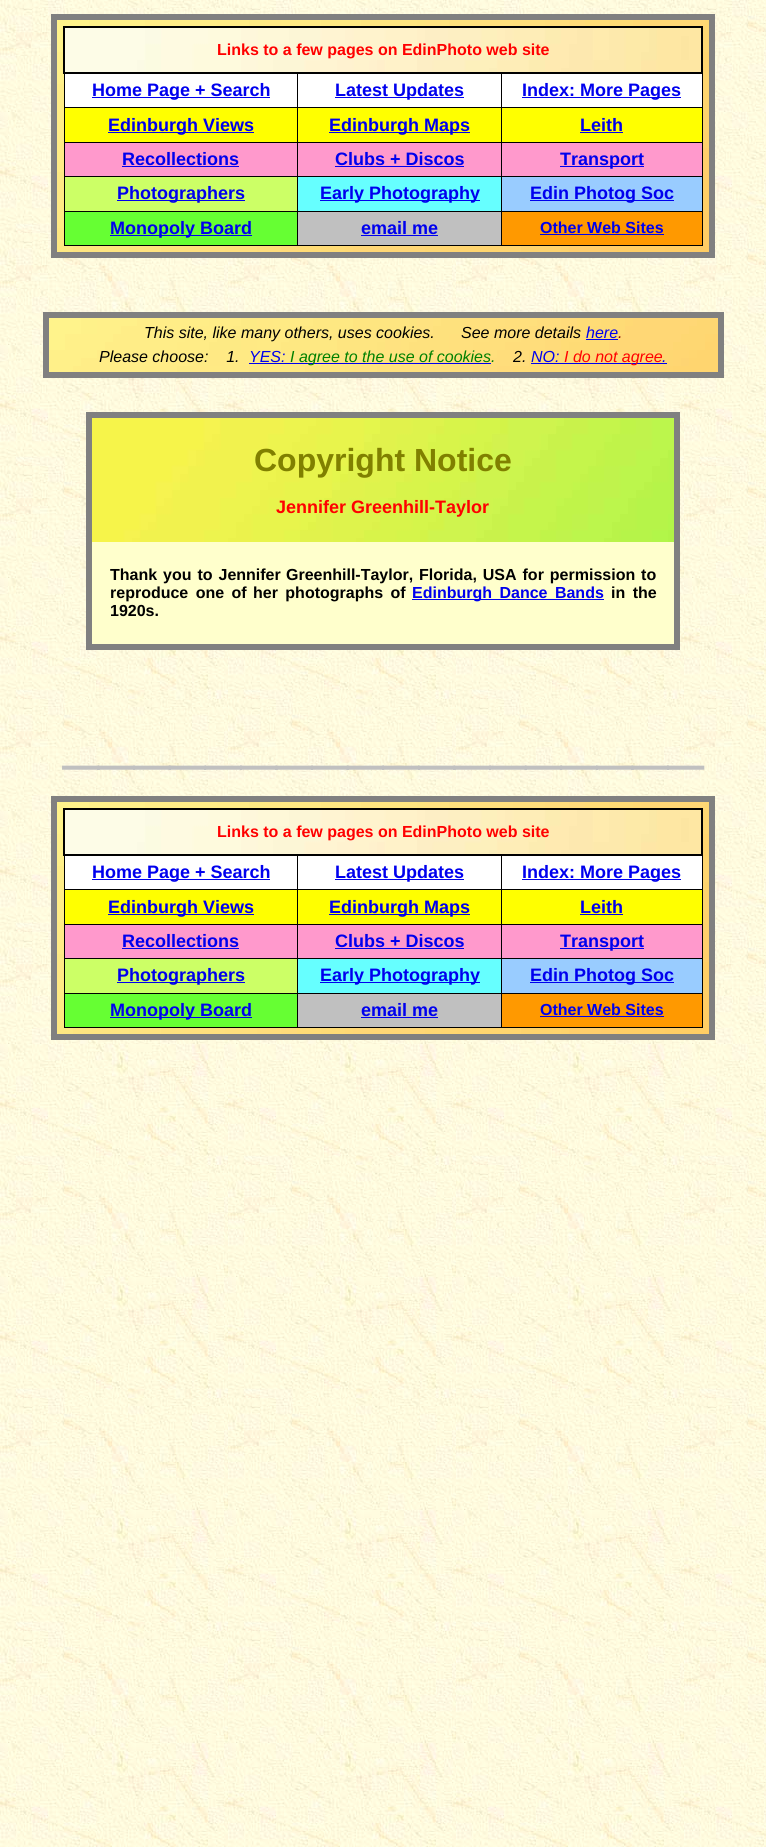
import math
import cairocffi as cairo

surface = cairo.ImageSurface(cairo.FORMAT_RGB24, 766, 1847)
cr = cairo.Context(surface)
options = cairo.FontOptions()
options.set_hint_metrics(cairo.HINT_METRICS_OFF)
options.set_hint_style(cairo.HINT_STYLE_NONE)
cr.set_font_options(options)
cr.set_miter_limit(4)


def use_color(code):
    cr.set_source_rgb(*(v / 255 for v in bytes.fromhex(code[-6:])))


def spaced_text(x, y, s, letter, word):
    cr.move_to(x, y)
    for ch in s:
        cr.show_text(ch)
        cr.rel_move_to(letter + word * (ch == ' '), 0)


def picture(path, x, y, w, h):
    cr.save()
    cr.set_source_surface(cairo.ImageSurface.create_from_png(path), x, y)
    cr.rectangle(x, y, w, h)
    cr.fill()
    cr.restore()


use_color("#ffffff")
cr.paint()
picture("img1.png", 0, 0, 766, 1847)
use_color("#808080")
cr.rectangle(51, 14, 664, 6)
cr.fill()
cr.rectangle(709, 14, 6, 244)
cr.fill()
cr.rectangle(51, 252, 664, 6)
cr.fill()
cr.rectangle(51, 14, 6, 244)
cr.fill()
picture("img2.png", 57, 20, 652, 232)
picture("img3.png", 65, 28, 636, 44)
use_color("#000000")
cr.rectangle(63, 26, 640, 2)
cr.fill()
cr.rectangle(501, 107, 202, 1)
cr.fill()
cr.rectangle(501, 142, 202, 1)
cr.fill()
cr.rectangle(501, 176, 202, 1)
cr.fill()
cr.rectangle(501, 211, 202, 1)
cr.fill()
cr.rectangle(702, 211, 1, 35)
cr.fill()
cr.rectangle(702, 176, 1, 36)
cr.fill()
cr.rectangle(702, 142, 1, 35)
cr.fill()
cr.rectangle(702, 72, 1, 71)
cr.fill()
cr.rectangle(701, 26, 2, 48)
cr.fill()
cr.rectangle(501, 245, 202, 1)
cr.fill()
cr.rectangle(501, 211, 1, 35)
cr.fill()
cr.rectangle(297, 211, 205, 1)
cr.fill()
cr.rectangle(501, 176, 1, 36)
cr.fill()
cr.rectangle(297, 176, 205, 1)
cr.fill()
cr.rectangle(501, 142, 1, 35)
cr.fill()
cr.rectangle(297, 142, 205, 1)
cr.fill()
cr.rectangle(501, 107, 1, 36)
cr.fill()
cr.rectangle(297, 107, 205, 1)
cr.fill()
cr.rectangle(297, 245, 205, 1)
cr.fill()
cr.rectangle(297, 211, 1, 35)
cr.fill()
cr.rectangle(64, 211, 234, 1)
cr.fill()
cr.rectangle(297, 176, 1, 36)
cr.fill()
cr.rectangle(64, 176, 234, 1)
cr.fill()
cr.rectangle(297, 142, 1, 35)
cr.fill()
cr.rectangle(64, 142, 234, 1)
cr.fill()
cr.rectangle(297, 107, 1, 36)
cr.fill()
cr.rectangle(64, 107, 234, 1)
cr.fill()
cr.rectangle(297, 72, 1, 36)
cr.fill()
cr.rectangle(501, 72, 1, 36)
cr.fill()
cr.rectangle(64, 245, 234, 1)
cr.fill()
cr.rectangle(64, 211, 1, 35)
cr.fill()
cr.rectangle(64, 176, 1, 36)
cr.fill()
cr.rectangle(64, 142, 1, 35)
cr.fill()
cr.rectangle(64, 72, 1, 71)
cr.fill()
cr.rectangle(63, 72, 640, 2)
cr.fill()
cr.rectangle(63, 26, 2, 48)
cr.fill()
cr.select_font_face("Liberation Sans", cairo.FONT_SLANT_NORMAL, cairo.FONT_WEIGHT_BOLD)
cr.set_font_size(16)
use_color("#ff0000")
cr.move_to(217, 55)
cr.show_text("Links to a few pages on EdinPhoto web site")
use_color("#ffffff")
cr.rectangle(65, 74, 232, 33)
cr.fill()
use_color("#0000ee")
cr.rectangle(92, 97, 178, 1)
cr.fill()
cr.set_font_size(18)
cr.move_to(92, 96)
cr.show_text("Home Page + Search")
use_color("#ffffff")
cr.rectangle(298, 74, 203, 33)
cr.fill()
use_color("#0000ee")
cr.rectangle(335, 97, 129, 1)
cr.fill()
cr.move_to(335, 96)
cr.show_text("Latest Updates")
use_color("#ffffff")
cr.rectangle(502, 74, 200, 33)
cr.fill()
use_color("#0000ee")
cr.rectangle(522, 97, 159, 1)
cr.fill()
cr.move_to(522, 96)
cr.show_text("Index: More Pages")
use_color("#ffff00")
cr.rectangle(65, 108, 232, 34)
cr.fill()
use_color("#0000ee")
cr.rectangle(108, 132, 146, 1)
cr.fill()
cr.move_to(108, 131)
cr.show_text("Edinburgh Views")
use_color("#ffff00")
cr.rectangle(298, 108, 203, 34)
cr.fill()
use_color("#0000ee")
cr.rectangle(329, 132, 141, 1)
cr.fill()
cr.move_to(329, 131)
cr.show_text("Edinburgh Maps")
use_color("#ffff00")
cr.rectangle(502, 108, 200, 34)
cr.fill()
use_color("#0000ee")
cr.move_to(580, 131)
cr.show_text("Leith")
cr.rectangle(580, 132, 43, 1)
cr.fill()
use_color("#ff99cc")
cr.rectangle(65, 143, 232, 33)
cr.fill()
use_color("#0000ee")
cr.move_to(122, 165)
cr.show_text("Recollections")
cr.rectangle(122, 166, 117, 1)
cr.fill()
use_color("#ff99cc")
cr.rectangle(298, 143, 203, 33)
cr.fill()
use_color("#0000ee")
cr.move_to(335, 165)
cr.show_text("Clubs + Discos")
cr.rectangle(335, 166, 129, 1)
cr.fill()
use_color("#ff99cc")
cr.rectangle(502, 143, 200, 33)
cr.fill()
use_color("#0000ee")
cr.rectangle(560, 166, 84, 1)
cr.fill()
cr.move_to(560, 165)
cr.show_text("Transport")
use_color("#ccff66")
cr.rectangle(65, 177, 232, 34)
cr.fill()
use_color("#0000ee")
cr.rectangle(117, 200, 128, 1)
cr.fill()
cr.move_to(117, 199)
cr.show_text("Photographers")
use_color("#66ffff")
cr.rectangle(298, 177, 203, 34)
cr.fill()
use_color("#0000ee")
cr.rectangle(320, 200, 160, 1)
cr.fill()
cr.move_to(320, 199)
cr.show_text("Early Photography")
use_color("#99ccff")
cr.rectangle(502, 177, 200, 34)
cr.fill()
use_color("#0000ee")
cr.rectangle(530, 200, 144, 1)
cr.fill()
cr.move_to(530, 199)
cr.show_text("Edin Photog Soc")
use_color("#66ff33")
cr.rectangle(65, 212, 232, 33)
cr.fill()
use_color("#0000ee")
cr.rectangle(110, 235, 142, 1)
cr.fill()
cr.move_to(110, 234)
cr.show_text("Monopoly Board")
use_color("#c0c0c0")
cr.rectangle(298, 212, 203, 33)
cr.fill()
use_color("#0000ee")
cr.move_to(361, 234)
cr.show_text("email me")
cr.rectangle(361, 235, 77, 1)
cr.fill()
use_color("#ff9900")
cr.rectangle(502, 212, 200, 33)
cr.fill()
cr.set_font_size(16)
use_color("#0000ee")
cr.move_to(540, 233)
cr.show_text("Other Web Sites")
cr.rectangle(540, 234, 124, 1)
cr.fill()
use_color("#808080")
cr.rectangle(43, 312, 681, 6)
cr.fill()
cr.rectangle(718, 312, 6, 66)
cr.fill()
cr.rectangle(43, 372, 681, 6)
cr.fill()
cr.rectangle(43, 312, 6, 66)
cr.fill()
picture("img4.png", 49, 318, 669, 54)
cr.select_font_face("Liberation Sans", cairo.FONT_SLANT_ITALIC)
use_color("#000000")
cr.move_to(144, 338)
cr.show_text("This site, like many others, uses cookies.")
cr.move_to(461, 338)
cr.show_text("See more details")
use_color("#0000ee")
cr.move_to(586, 338)
cr.show_text("here")
use_color("#800000")
cr.move_to(618, 338)
cr.show_text(".")
use_color("#0000ee")
cr.rectangle(586, 339, 32, 1)
cr.fill()
use_color("#000000")
cr.move_to(99, 362)
cr.show_text("Please choose:    1.")
use_color("#0000ee")
cr.move_to(249, 362)
cr.show_text("YES:")
cr.rectangle(249, 363, 242, 1)
cr.fill()
use_color("#008000")
cr.move_to(290, 362)
cr.show_text("I agree to the use of cookies.")
use_color("#000000")
cr.move_to(513, 362)
cr.show_text("2.")
use_color("#0000ee")
cr.move_to(531, 362)
cr.show_text("NO:")
cr.rectangle(531, 363, 136, 1)
cr.fill()
use_color("#ff0000")
cr.move_to(564, 362)
cr.show_text("I do not agree")
use_color("#0000ee")
cr.move_to(662, 362)
cr.show_text(".")
use_color("#808080")
cr.rectangle(86, 412, 594, 6)
cr.fill()
cr.rectangle(674, 412, 6, 238)
cr.fill()
cr.rectangle(86, 644, 594, 6)
cr.fill()
cr.rectangle(86, 412, 6, 238)
cr.fill()
picture("img5.png", 92, 418, 582, 124)
cr.select_font_face("Liberation Sans", cairo.FONT_SLANT_NORMAL, cairo.FONT_WEIGHT_BOLD)
cr.set_font_size(32)
use_color("#808000")
cr.move_to(254, 471)
cr.show_text("Copyright Notice")
cr.set_font_size(18)
use_color("#ff0000")
cr.move_to(276, 513)
cr.show_text("Jennifer Greenhill-Taylor")
use_color("#ffffcc")
cr.rectangle(92, 542, 582, 102)
cr.fill()
cr.set_font_size(16)
use_color("#000000")
spaced_text(110, 580, "Thank you to Jennifer", 0, 1.5)
spaced_text(286, 580, "Greenhill-Taylor, Florida, USA for permission to", 0, 1.5)
spaced_text(110, 598, "reproduce one of", 0, 3)
spaced_text(253, 598, "her photographs of", 0, 3)
use_color("#0000ee")
cr.rectangle(412, 599, 192, 1)
cr.fill()
spaced_text(412, 598, "Edinburgh Dance Bands", 0, 3)
use_color("#000000")
spaced_text(611, 598, "in the", 0, 3)
cr.move_to(110, 616)
cr.show_text("1920s.")
cr.select_font_face("Liberation Sans")
cr.set_font_size(64)
use_color("#c0c0c0")
cr.move_to(63, 757)
cr.show_text("__________________")
use_color("#808080")
cr.rectangle(51, 796, 664, 6)
cr.fill()
cr.rectangle(709, 796, 6, 244)
cr.fill()
cr.rectangle(51, 1034, 664, 6)
cr.fill()
cr.rectangle(51, 796, 6, 244)
cr.fill()
picture("img2.png", 57, 802, 652, 232)
picture("img3.png", 65, 810, 636, 44)
use_color("#000000")
cr.rectangle(63, 808, 640, 2)
cr.fill()
cr.rectangle(501, 889, 202, 1)
cr.fill()
cr.rectangle(501, 924, 202, 1)
cr.fill()
cr.rectangle(501, 958, 202, 1)
cr.fill()
cr.rectangle(501, 993, 202, 1)
cr.fill()
cr.rectangle(702, 993, 1, 35)
cr.fill()
cr.rectangle(702, 958, 1, 36)
cr.fill()
cr.rectangle(702, 924, 1, 35)
cr.fill()
cr.rectangle(702, 854, 1, 71)
cr.fill()
cr.rectangle(701, 808, 2, 48)
cr.fill()
cr.rectangle(501, 1027, 202, 1)
cr.fill()
cr.rectangle(501, 993, 1, 35)
cr.fill()
cr.rectangle(297, 993, 205, 1)
cr.fill()
cr.rectangle(501, 958, 1, 36)
cr.fill()
cr.rectangle(297, 958, 205, 1)
cr.fill()
cr.rectangle(501, 924, 1, 35)
cr.fill()
cr.rectangle(297, 924, 205, 1)
cr.fill()
cr.rectangle(501, 889, 1, 36)
cr.fill()
cr.rectangle(297, 889, 205, 1)
cr.fill()
cr.rectangle(297, 1027, 205, 1)
cr.fill()
cr.rectangle(297, 993, 1, 35)
cr.fill()
cr.rectangle(64, 993, 234, 1)
cr.fill()
cr.rectangle(297, 958, 1, 36)
cr.fill()
cr.rectangle(64, 958, 234, 1)
cr.fill()
cr.rectangle(297, 924, 1, 35)
cr.fill()
cr.rectangle(64, 924, 234, 1)
cr.fill()
cr.rectangle(297, 889, 1, 36)
cr.fill()
cr.rectangle(64, 889, 234, 1)
cr.fill()
cr.rectangle(297, 854, 1, 36)
cr.fill()
cr.rectangle(501, 854, 1, 36)
cr.fill()
cr.rectangle(64, 1027, 234, 1)
cr.fill()
cr.rectangle(64, 993, 1, 35)
cr.fill()
cr.rectangle(64, 958, 1, 36)
cr.fill()
cr.rectangle(64, 924, 1, 35)
cr.fill()
cr.rectangle(64, 854, 1, 71)
cr.fill()
cr.rectangle(63, 854, 640, 2)
cr.fill()
cr.rectangle(63, 808, 2, 48)
cr.fill()
cr.select_font_face("Liberation Sans", cairo.FONT_SLANT_NORMAL, cairo.FONT_WEIGHT_BOLD)
cr.set_font_size(16)
use_color("#ff0000")
cr.move_to(217, 837)
cr.show_text("Links to a few pages on EdinPhoto web site")
use_color("#ffffff")
cr.rectangle(65, 856, 232, 33)
cr.fill()
use_color("#0000ee")
cr.rectangle(92, 879, 178, 1)
cr.fill()
cr.set_font_size(18)
cr.move_to(92, 878)
cr.show_text("Home Page + Search")
use_color("#ffffff")
cr.rectangle(298, 856, 203, 33)
cr.fill()
use_color("#0000ee")
cr.rectangle(335, 879, 129, 1)
cr.fill()
cr.move_to(335, 878)
cr.show_text("Latest Updates")
use_color("#ffffff")
cr.rectangle(502, 856, 200, 33)
cr.fill()
use_color("#0000ee")
cr.rectangle(522, 879, 159, 1)
cr.fill()
cr.move_to(522, 878)
cr.show_text("Index: More Pages")
use_color("#ffff00")
cr.rectangle(65, 890, 232, 34)
cr.fill()
use_color("#0000ee")
cr.rectangle(108, 914, 146, 1)
cr.fill()
cr.move_to(108, 913)
cr.show_text("Edinburgh Views")
use_color("#ffff00")
cr.rectangle(298, 890, 203, 34)
cr.fill()
use_color("#0000ee")
cr.rectangle(329, 914, 141, 1)
cr.fill()
cr.move_to(329, 913)
cr.show_text("Edinburgh Maps")
use_color("#ffff00")
cr.rectangle(502, 890, 200, 34)
cr.fill()
use_color("#0000ee")
cr.move_to(580, 913)
cr.show_text("Leith")
cr.rectangle(580, 914, 43, 1)
cr.fill()
use_color("#ff99cc")
cr.rectangle(65, 925, 232, 33)
cr.fill()
use_color("#0000ee")
cr.move_to(122, 947)
cr.show_text("Recollections")
cr.rectangle(122, 948, 117, 1)
cr.fill()
use_color("#ff99cc")
cr.rectangle(298, 925, 203, 33)
cr.fill()
use_color("#0000ee")
cr.move_to(335, 947)
cr.show_text("Clubs + Discos")
cr.rectangle(335, 948, 129, 1)
cr.fill()
use_color("#ff99cc")
cr.rectangle(502, 925, 200, 33)
cr.fill()
use_color("#0000ee")
cr.rectangle(560, 948, 84, 1)
cr.fill()
cr.move_to(560, 947)
cr.show_text("Transport")
use_color("#ccff66")
cr.rectangle(65, 959, 232, 34)
cr.fill()
use_color("#0000ee")
cr.rectangle(117, 982, 128, 1)
cr.fill()
cr.move_to(117, 981)
cr.show_text("Photographers")
use_color("#66ffff")
cr.rectangle(298, 959, 203, 34)
cr.fill()
use_color("#0000ee")
cr.rectangle(320, 982, 160, 1)
cr.fill()
cr.move_to(320, 981)
cr.show_text("Early Photography")
use_color("#99ccff")
cr.rectangle(502, 959, 200, 34)
cr.fill()
use_color("#0000ee")
cr.rectangle(530, 982, 144, 1)
cr.fill()
cr.move_to(530, 981)
cr.show_text("Edin Photog Soc")
use_color("#66ff33")
cr.rectangle(65, 994, 232, 33)
cr.fill()
use_color("#0000ee")
cr.rectangle(110, 1017, 142, 1)
cr.fill()
cr.move_to(110, 1016)
cr.show_text("Monopoly Board")
use_color("#c0c0c0")
cr.rectangle(298, 994, 203, 33)
cr.fill()
use_color("#0000ee")
cr.move_to(361, 1016)
cr.show_text("email me")
cr.rectangle(361, 1017, 77, 1)
cr.fill()
use_color("#ff9900")
cr.rectangle(502, 994, 200, 33)
cr.fill()
cr.set_font_size(16)
use_color("#0000ee")
cr.move_to(540, 1015)
cr.show_text("Other Web Sites")
cr.rectangle(540, 1016, 124, 1)
cr.fill()
surface.write_to_png("result.png")
